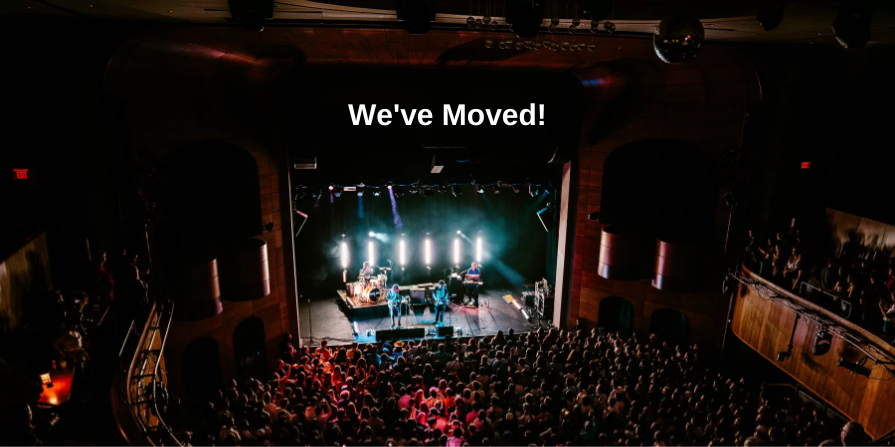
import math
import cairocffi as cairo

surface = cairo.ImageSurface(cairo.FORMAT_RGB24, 895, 447)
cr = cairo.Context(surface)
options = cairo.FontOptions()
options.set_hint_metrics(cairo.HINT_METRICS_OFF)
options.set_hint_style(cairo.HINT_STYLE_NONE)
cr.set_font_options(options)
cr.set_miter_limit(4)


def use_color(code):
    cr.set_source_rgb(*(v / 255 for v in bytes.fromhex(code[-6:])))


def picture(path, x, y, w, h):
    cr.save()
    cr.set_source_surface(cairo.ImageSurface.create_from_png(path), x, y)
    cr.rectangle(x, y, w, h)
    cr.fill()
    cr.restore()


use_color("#ffffff")
cr.paint()
picture("img1.png", 0, 0, 895, 447)
cr.select_font_face("Liberation Sans", cairo.FONT_SLANT_NORMAL, cairo.FONT_WEIGHT_BOLD)
cr.set_font_size(30)
use_color("#ffffff")
cr.move_to(348, 125)
cr.show_text("We've Moved!")
surface.write_to_png("result.png")
